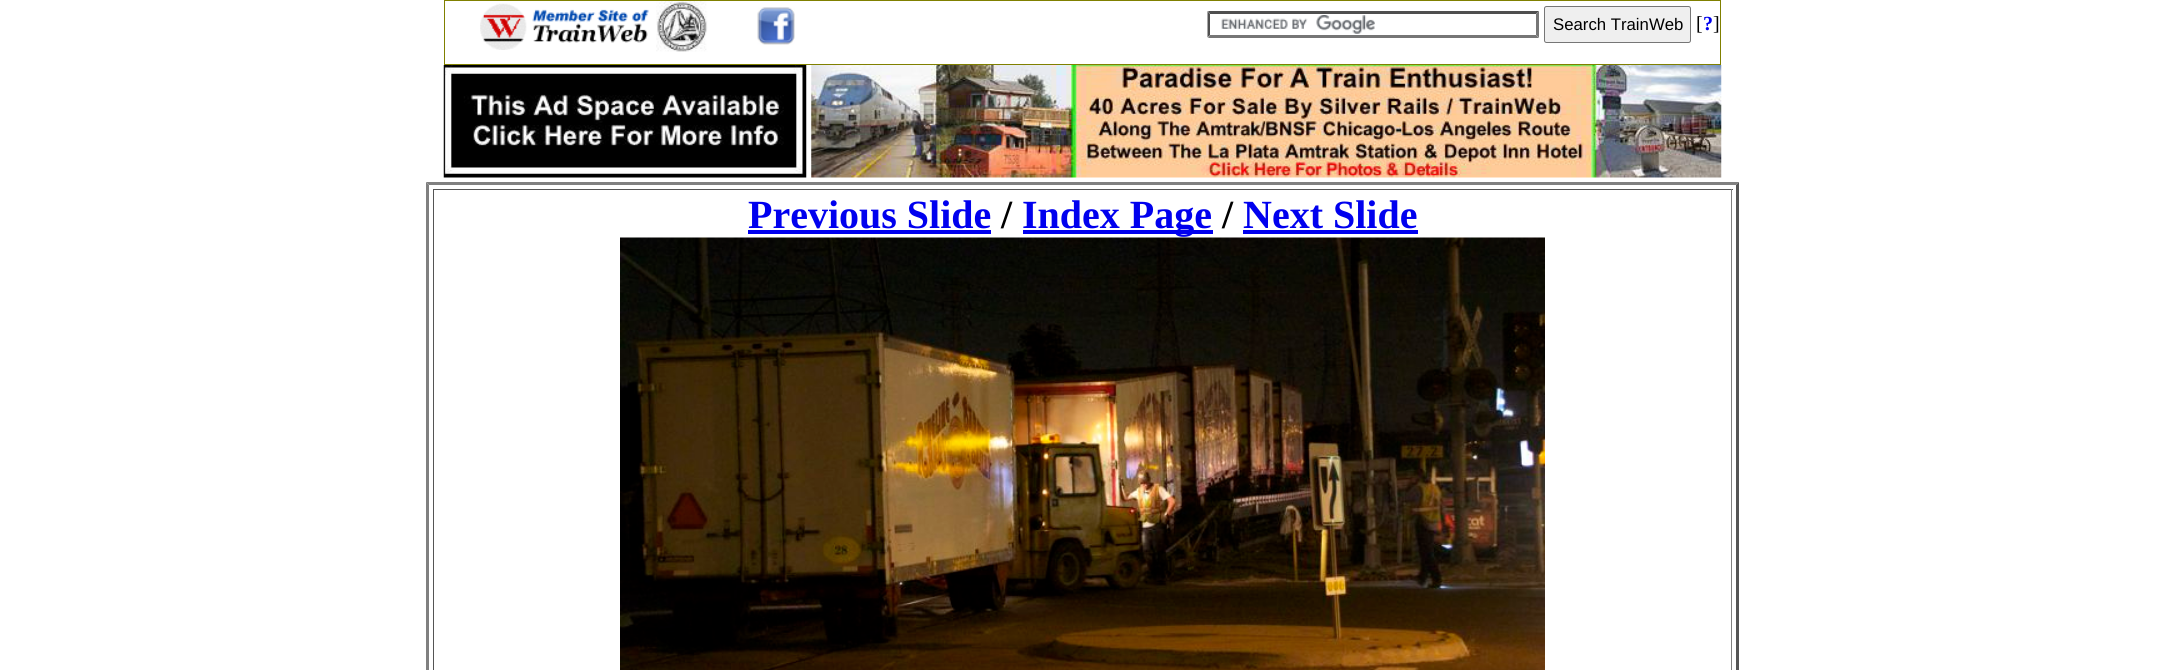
import math
import cairocffi as cairo

surface = cairo.ImageSurface(cairo.FORMAT_RGB24, 2164, 670)
cr = cairo.Context(surface)
options = cairo.FontOptions()
options.set_hint_metrics(cairo.HINT_METRICS_OFF)
options.set_hint_style(cairo.HINT_STYLE_NONE)
cr.set_font_options(options)
cr.set_miter_limit(4)


def use_color(code):
    cr.set_source_rgb(*(v / 255 for v in bytes.fromhex(code[-6:])))


def round_rect(x, y, w, h, r):
    cr.new_sub_path()
    for i, (u, v) in enumerate([(x + w - r, y + h - r), (x + r, y + h - r), (x + r, y + r), (x + w - r, y + r)]):
        cr.arc(u, v, r, i * math.pi / 2, (i + 1) * math.pi / 2)
    cr.close_path()


def picture(path, x, y, w, h):
    cr.save()
    cr.set_source_surface(cairo.ImageSurface.create_from_png(path), x, y)
    cr.rectangle(x, y, w, h)
    cr.fill()
    cr.restore()


use_color("#ffffff")
cr.paint()
cr.rectangle(444.5, 0.5, 1276, 64)
use_color("#808000")
cr.set_line_width(1)
cr.stroke()
picture("img1.png", 480, 3, 169, 47)
picture("img2.png", 656, 1, 52, 51)
picture("img3.png", 757, 7, 38, 38)
picture("img4.png", 1221, 15, 154, 19)
use_color("#4f4f4f")
cr.new_path()
cr.move_to(1208, 11)
cr.line_to(1539, 11)
cr.line_to(1536, 14)
cr.line_to(1210, 14)
cr.close_path()
cr.fill()
use_color("#767676")
cr.new_path()
cr.move_to(1539, 11)
cr.line_to(1539, 37.5)
cr.line_to(1536, 35)
cr.line_to(1536, 14)
cr.close_path()
cr.fill()
cr.new_path()
cr.move_to(1539, 38)
cr.line_to(1208, 38)
cr.line_to(1210, 35)
cr.line_to(1536, 35)
cr.close_path()
cr.fill()
use_color("#4f4f4f")
cr.new_path()
cr.move_to(1207.5, 37.5)
cr.line_to(1207.5, 11)
cr.line_to(1210, 14)
cr.line_to(1210, 35)
cr.close_path()
cr.fill()
use_color("#efefef")
round_rect(1544.5, 6.5, 146, 36, 2)
cr.fill_preserve()
use_color("#767676")
cr.stroke()
cr.select_font_face("Liberation Sans")
cr.set_font_size(16.75)
use_color("#000000")
cr.move_to(1553, 30)
cr.show_text("Search TrainWeb")
cr.select_font_face("Liberation Serif")
cr.set_font_size(20)
cr.move_to(1696, 30)
cr.show_text("[")
cr.select_font_face("Liberation Serif", cairo.FONT_SLANT_NORMAL, cairo.FONT_WEIGHT_BOLD)
use_color("#0000ee")
cr.move_to(1703, 30)
cr.show_text("?")
cr.select_font_face("Liberation Serif")
use_color("#000000")
cr.move_to(1713, 30)
cr.show_text("]")
picture("img5.png", 443, 65, 364, 113)
picture("img6.png", 811, 65, 911, 113)
use_color("#808080")
cr.new_path()
cr.move_to(426, 182)
cr.line_to(1739, 182)
cr.line_to(1736, 185)
cr.line_to(429, 185)
cr.close_path()
cr.fill()
use_color("#555555")
cr.new_path()
cr.move_to(1739, 182)
cr.line_to(1739, 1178)
cr.line_to(1736, 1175)
cr.line_to(1736, 185)
cr.close_path()
cr.fill()
use_color("#808080")
cr.new_path()
cr.move_to(426, 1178)
cr.line_to(426, 182)
cr.line_to(429, 185)
cr.line_to(429, 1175)
cr.close_path()
cr.fill()
use_color("#555555")
cr.rectangle(433, 189, 1300, 1)
cr.fill()
use_color("#808080")
cr.rectangle(1731, 189, 1, 481)
cr.fill()
use_color("#555555")
cr.rectangle(433, 189, 1, 481)
cr.fill()
cr.select_font_face("Liberation Serif", cairo.FONT_SLANT_NORMAL, cairo.FONT_WEIGHT_BOLD)
cr.set_font_size(40)
use_color("#0000ee")
cr.move_to(748, 228)
cr.show_text("Previous Slide")
cr.rectangle(748, 230, 243, 4)
cr.fill()
use_color("#000000")
cr.move_to(1001, 228)
cr.show_text("/")
use_color("#0000ee")
cr.rectangle(1023, 230, 190, 4)
cr.fill()
cr.move_to(1022, 228)
cr.show_text("Index Page")
use_color("#000000")
cr.move_to(1222, 228)
cr.show_text("/")
use_color("#0000ee")
cr.move_to(1243, 228)
cr.show_text("Next Slide")
cr.rectangle(1243, 230, 175, 4)
cr.fill()
picture("img7.png", 620, 237, 925, 433)
surface.write_to_png("result.png")
